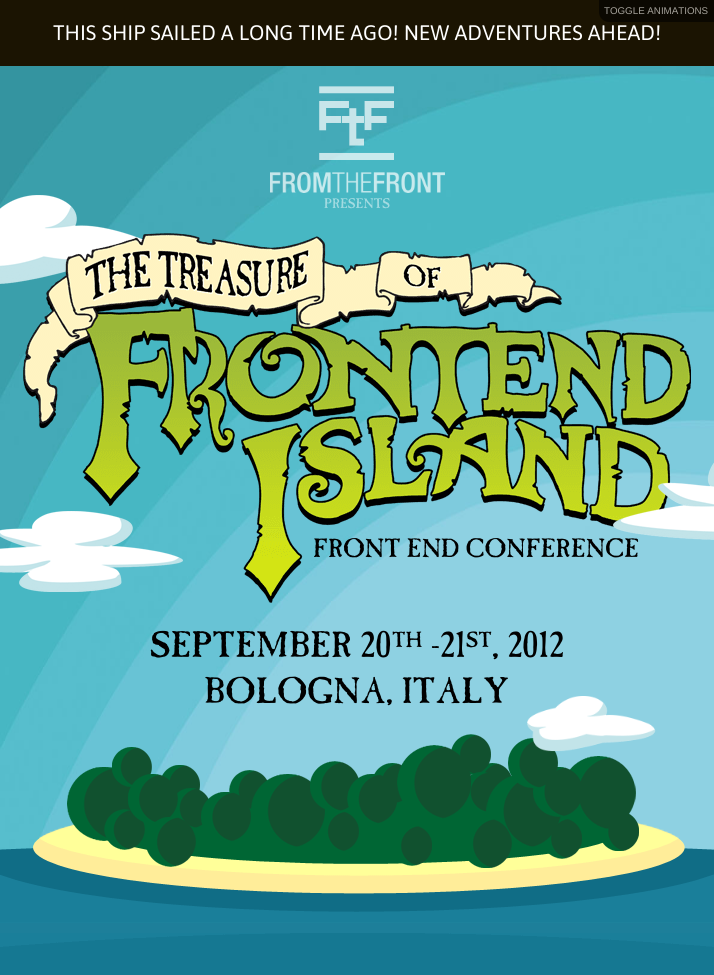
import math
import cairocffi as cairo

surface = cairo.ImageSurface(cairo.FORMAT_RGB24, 714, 975)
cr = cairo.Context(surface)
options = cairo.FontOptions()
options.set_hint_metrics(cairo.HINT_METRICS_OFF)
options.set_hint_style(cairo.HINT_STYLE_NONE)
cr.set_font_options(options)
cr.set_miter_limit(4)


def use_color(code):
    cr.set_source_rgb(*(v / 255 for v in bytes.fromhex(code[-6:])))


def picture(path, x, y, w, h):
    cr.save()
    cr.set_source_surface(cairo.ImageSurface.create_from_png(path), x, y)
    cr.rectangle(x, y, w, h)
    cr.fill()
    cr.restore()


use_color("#1b1402")
cr.paint()
use_color("#0b0801")
cr.new_path()
cr.move_to(599, 0)
cr.line_to(714, 0)
cr.line_to(714, 22)
cr.line_to(609, 22)
cr.curve_to(603.5, 22, 599, 17.5, 599, 12)
cr.close_path()
cr.fill()
cr.select_font_face("Liberation Sans")
cr.set_font_size(9.75)
use_color("#a4a19a")
cr.move_to(604, 14)
cr.show_text("TOGGLE ANIMATIONS")
cr.select_font_face("Asap")
cr.set_font_size(21)
use_color("#ffffff")
cr.move_to(53, 40)
cr.show_text("THIS SHIP SAILED A LONG TIME AGO! NEW ADVENTURES AHEAD!")
picture("img1.png", 0, 66, 714, 857)
picture("img2.png", 270, 86, 175, 107)
cr.select_font_face("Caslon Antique")
cr.set_font_size(14)
use_color("#a3dbe1")
cr.move_to(324, 208)
cr.show_text("PRESENTS")
picture("img3.png", 0, 195, 147, 89)
picture("img5.png", 0, 511, 183, 81)
cr.set_font_size(26.6)
use_color("#000000")
cr.move_to(313, 557)
cr.show_text("FRONT END CONFERENCE")
picture("img7.png", 23, 233, 668, 370)
picture("img4.png", 613, 462, 101, 78)
picture("img8.png", 0, 734, 714, 189)
picture("img6.png", 527, 696, 129, 56)
cr.set_font_size(37)
cr.move_to(150, 657)
cr.show_text("SEPTEMBER 20")
cr.set_font_size(22)
cr.move_to(392, 647)
cr.show_text("TH")
cr.set_font_size(37)
cr.move_to(431, 657)
cr.show_text("-21")
cr.set_font_size(22)
cr.move_to(466, 647)
cr.show_text("ST")
cr.set_font_size(37)
cr.move_to(492, 657)
cr.show_text(", 2012")
cr.move_to(204, 703)
cr.show_text("BOLOGNA, ITALY")
use_color("#1d7f9a")
cr.rectangle(0, 923, 714, 10)
cr.fill()
picture("img9.png", 0, 933, 714, 42)
surface.write_to_png("result.png")
